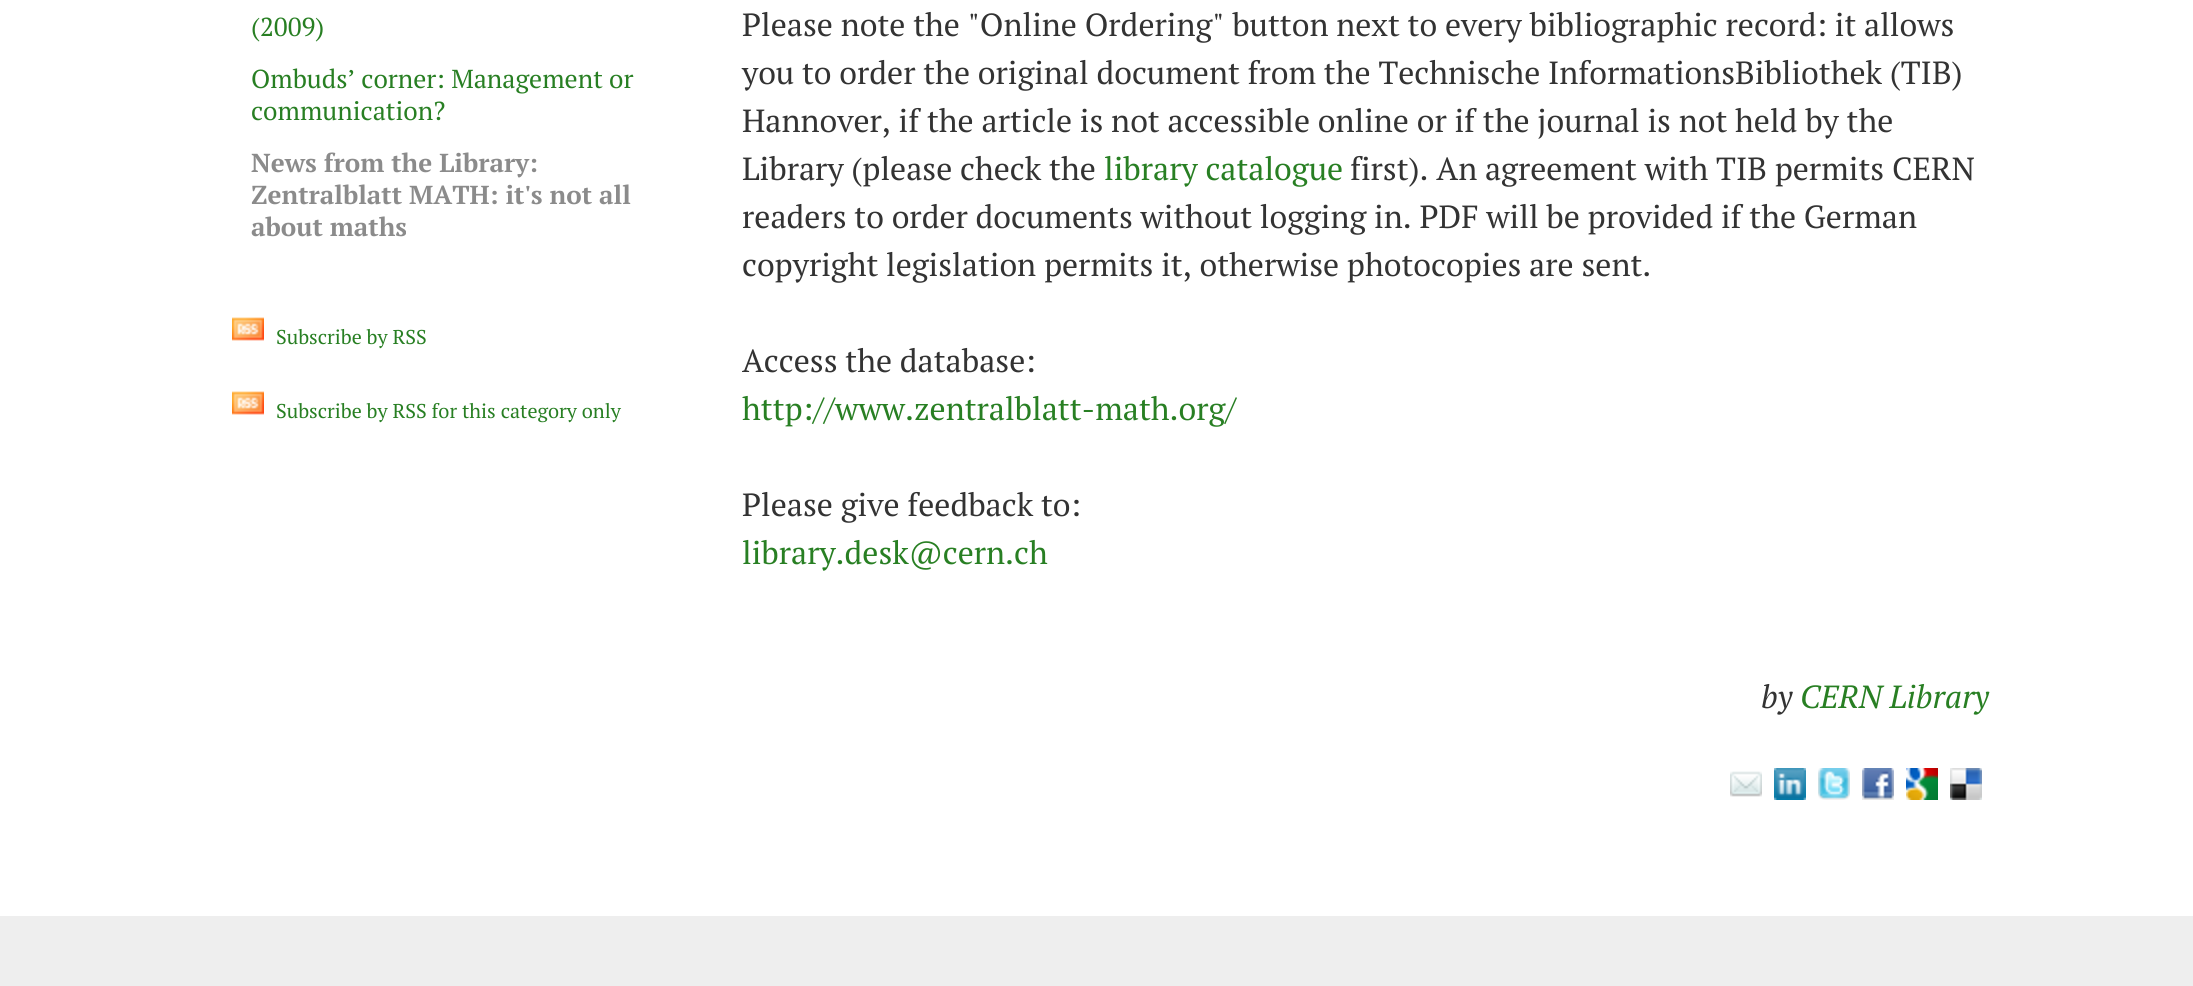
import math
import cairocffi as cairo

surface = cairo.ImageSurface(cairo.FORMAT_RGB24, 2193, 986)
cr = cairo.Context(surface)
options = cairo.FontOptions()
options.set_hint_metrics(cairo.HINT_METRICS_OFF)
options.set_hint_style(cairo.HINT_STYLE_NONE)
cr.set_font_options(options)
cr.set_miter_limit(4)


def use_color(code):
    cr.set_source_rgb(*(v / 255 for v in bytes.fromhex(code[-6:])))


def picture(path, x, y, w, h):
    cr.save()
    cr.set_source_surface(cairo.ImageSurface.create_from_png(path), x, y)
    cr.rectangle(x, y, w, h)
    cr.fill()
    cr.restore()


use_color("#ffffff")
cr.paint()
cr.select_font_face("PT Serif")
cr.set_font_size(26)
use_color("#287f23")
cr.move_to(251, 36)
cr.show_text("(2009)")
cr.move_to(251, 88)
cr.show_text("Ombuds’ corner: Management or")
cr.move_to(251, 120)
cr.show_text("communication?")
cr.select_font_face("PT Serif", cairo.FONT_SLANT_NORMAL, cairo.FONT_WEIGHT_BOLD)
use_color("#8b8b8b")
cr.move_to(251, 172)
cr.show_text("News from the Library:")
cr.move_to(251, 204)
cr.show_text("Zentralblatt MATH: it's not all")
cr.move_to(251, 236)
cr.show_text("about maths")
picture("img1.png", 232, 317, 32, 24)
cr.select_font_face("PT Serif")
cr.set_font_size(20)
use_color("#287f23")
cr.move_to(276, 344)
cr.show_text("Subscribe by RSS")
picture("img1.png", 232, 391, 32, 24)
cr.move_to(276, 418)
cr.show_text("Subscribe by RSS for this category only")
cr.set_font_size(32)
use_color("#333333")
cr.move_to(742, 36)
cr.show_text("Please note the \"Online Ordering\" button next to every bibliographic record: it allows")
cr.move_to(742, 84)
cr.show_text("you to order the original document from the Technische InformationsBibliothek (TIB)")
cr.move_to(742, 132)
cr.show_text("Hannover, if the article is not accessible online or if the journal is not held by the")
cr.move_to(742, 180)
cr.show_text("Library (please check the")
use_color("#287f23")
cr.move_to(1104, 180)
cr.show_text("library catalogue")
use_color("#333333")
cr.move_to(1350, 180)
cr.show_text("first). An agreement with TIB permits CERN")
cr.move_to(742, 228)
cr.show_text("readers to order documents without logging in. PDF will be provided if the German")
cr.move_to(742, 276)
cr.show_text("copyright legislation permits it, otherwise photocopies are sent.")
cr.move_to(742, 372)
cr.show_text("Access the database:")
use_color("#287f23")
cr.move_to(742, 420)
cr.show_text("http://www.zentralblatt-math.org/")
use_color("#333333")
cr.move_to(742, 516)
cr.show_text("Please give feedback to:")
use_color("#287f23")
cr.move_to(742, 564)
cr.show_text("library.desk@cern.ch")
cr.select_font_face("PT Serif", cairo.FONT_SLANT_ITALIC)
use_color("#333333")
cr.move_to(1761, 708)
cr.show_text("by")
use_color("#287f23")
cr.move_to(1800, 708)
cr.show_text("CERN Library")
picture("img2.png", 1730, 771, 32, 26)
picture("img3.png", 1774, 768, 32, 32)
picture("img4.png", 1818, 768, 32, 32)
picture("img5.png", 1862, 768, 32, 32)
picture("img6.png", 1906, 768, 32, 32)
picture("img7.png", 1950, 768, 32, 32)
use_color("#eeeeee")
cr.rectangle(0, 916, 2193, 70)
cr.fill()
surface.write_to_png("result.png")
